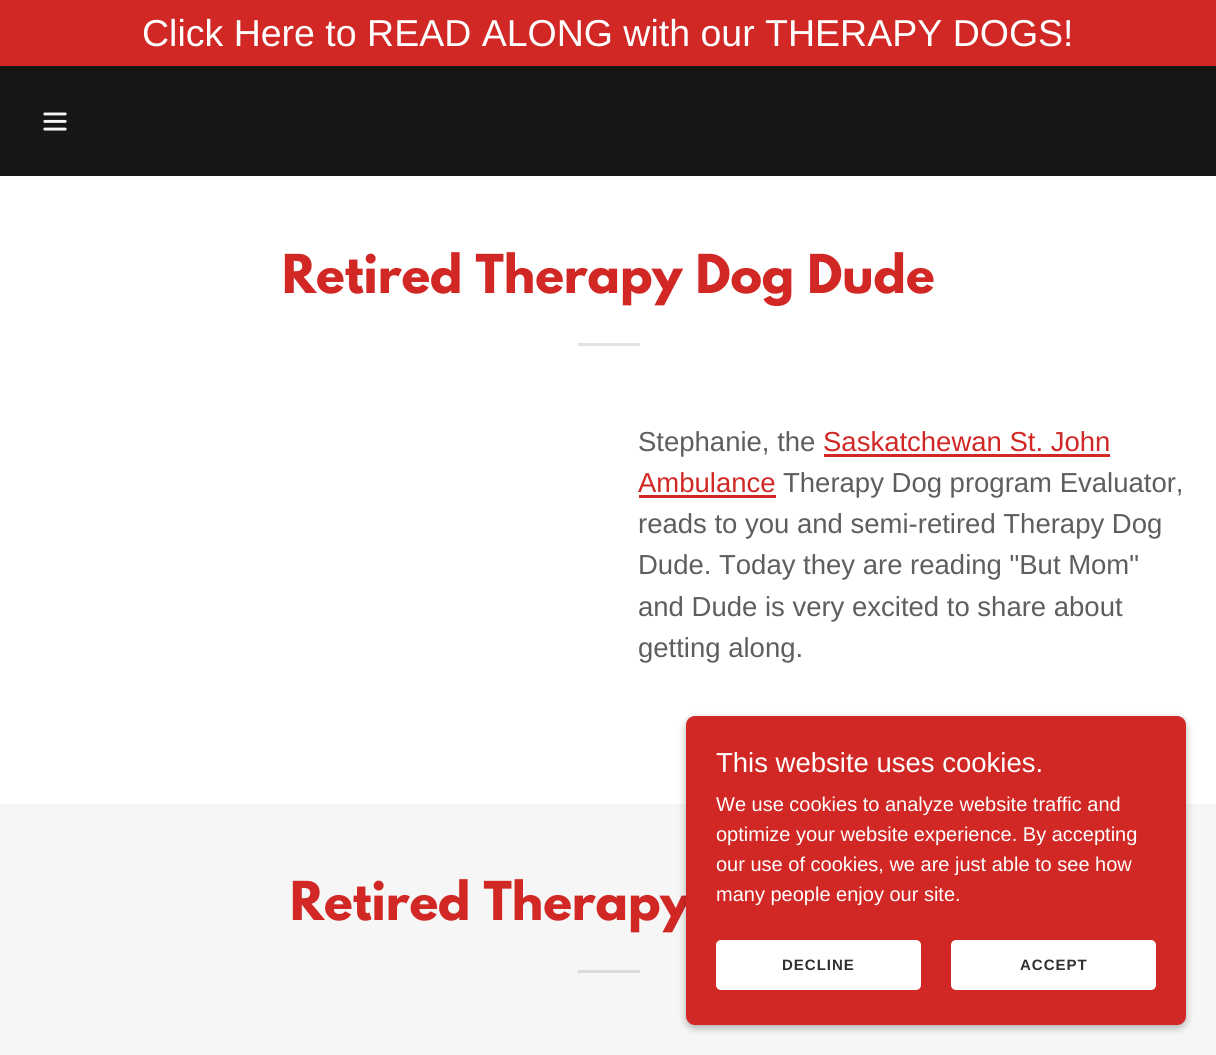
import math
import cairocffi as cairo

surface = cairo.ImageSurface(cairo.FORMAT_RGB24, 1216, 1055)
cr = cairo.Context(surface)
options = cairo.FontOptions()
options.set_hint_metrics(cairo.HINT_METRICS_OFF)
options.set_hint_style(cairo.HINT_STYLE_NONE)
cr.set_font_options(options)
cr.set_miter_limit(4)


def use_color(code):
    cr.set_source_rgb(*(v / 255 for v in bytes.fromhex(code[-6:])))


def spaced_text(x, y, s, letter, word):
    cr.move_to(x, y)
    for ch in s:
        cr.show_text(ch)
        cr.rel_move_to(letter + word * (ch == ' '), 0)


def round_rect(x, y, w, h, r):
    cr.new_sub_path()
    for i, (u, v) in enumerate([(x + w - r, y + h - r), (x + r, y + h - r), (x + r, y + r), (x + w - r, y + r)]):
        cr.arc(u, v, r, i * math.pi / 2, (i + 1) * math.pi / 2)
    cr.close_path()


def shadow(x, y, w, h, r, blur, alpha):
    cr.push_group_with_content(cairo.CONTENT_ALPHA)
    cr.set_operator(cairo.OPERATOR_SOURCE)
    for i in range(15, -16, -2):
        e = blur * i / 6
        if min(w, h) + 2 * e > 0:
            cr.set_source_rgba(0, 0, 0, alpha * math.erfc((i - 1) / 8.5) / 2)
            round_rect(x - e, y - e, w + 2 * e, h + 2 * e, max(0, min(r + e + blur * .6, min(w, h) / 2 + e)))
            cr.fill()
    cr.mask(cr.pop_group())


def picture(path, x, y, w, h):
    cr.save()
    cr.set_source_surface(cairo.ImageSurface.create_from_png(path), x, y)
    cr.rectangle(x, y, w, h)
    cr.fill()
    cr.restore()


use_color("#161616")
cr.paint()
use_color("#d22825")
cr.rectangle(0, 0, 1216, 66)
cr.fill()
cr.select_font_face("Liberation Sans")
cr.set_font_size(37.5)
use_color("#ffffff")
cr.move_to(142, 46)
cr.show_text("Click Here to READ ALONG with our THERAPY DOGS!")
picture("img1.png", 43, 112, 24, 19)
cr.rectangle(0, 176, 1216, 628)
cr.fill()
cr.select_font_face("League Spartan", cairo.FONT_SLANT_NORMAL, cairo.FONT_WEIGHT_BOLD)
cr.set_font_size(47.5)
use_color("#d22825")
cr.move_to(282, 293)
cr.show_text("Retired Therapy Dog Dude")
use_color("#e2e2e2")
cr.rectangle(578, 343, 62, 3)
cr.fill()
cr.select_font_face("Liberation Sans")
cr.set_font_size(27.5)
use_color("#5e5e5e")
cr.move_to(638, 451)
cr.show_text("Stephanie, the")
use_color("#d22825")
cr.move_to(823, 451)
cr.show_text("Saskatchewan St. John")
cr.rectangle(824, 454, 286, 3)
cr.fill()
cr.move_to(638, 492)
cr.show_text("Ambulance")
cr.rectangle(639, 495, 137, 3)
cr.fill()
use_color("#5e5e5e")
cr.move_to(783, 492)
cr.show_text("Therapy Dog program Evaluator,")
cr.move_to(638, 533)
cr.show_text("reads to you and semi-retired Therapy Dog")
cr.move_to(638, 574)
cr.show_text("Dude. Today they are reading \"But Mom\"")
cr.move_to(638, 616)
cr.show_text("and Dude is very excited to share about")
cr.move_to(638, 657)
cr.show_text("getting along.")
use_color("#f6f6f6")
cr.rectangle(0, 804, 1216, 251)
cr.fill()
cr.select_font_face("League Spartan", cairo.FONT_SLANT_NORMAL, cairo.FONT_WEIGHT_BOLD)
cr.set_font_size(47.5)
use_color("#d22825")
cr.move_to(290, 920)
cr.show_text("Retired Therapy")
use_color("#dadada")
cr.rectangle(578, 970, 62, 3)
cr.fill()
use_color("#000000")
shadow(686, 719, 500, 309, 9, 4, 0.3)
use_color("#d22825")
round_rect(686, 716, 500, 309, 9)
cr.fill()
cr.select_font_face("Liberation Sans")
cr.set_font_size(27.5)
use_color("#ffffff")
cr.move_to(716, 772)
cr.show_text("This website uses cookies.")
cr.set_font_size(20)
cr.move_to(716, 811)
cr.show_text("We use cookies to analyze website traffic and")
cr.move_to(716, 841)
cr.show_text("optimize your website experience. By accepting")
cr.move_to(716, 871)
cr.show_text("our use of cookies, we are just able to see how")
cr.move_to(716, 901)
cr.show_text("many people enjoy our site.")
round_rect(716, 940, 205, 50, 5)
cr.fill()
cr.select_font_face("Liberation Sans", cairo.FONT_SLANT_NORMAL, cairo.FONT_WEIGHT_BOLD)
cr.set_font_size(15)
use_color("#303030")
spaced_text(782, 970, "DECLINE", 1, 0)
use_color("#ffffff")
round_rect(951, 940, 205, 50, 5)
cr.fill()
use_color("#303030")
spaced_text(1020, 970, "ACCEPT", 1, 0)
surface.write_to_png("result.png")
